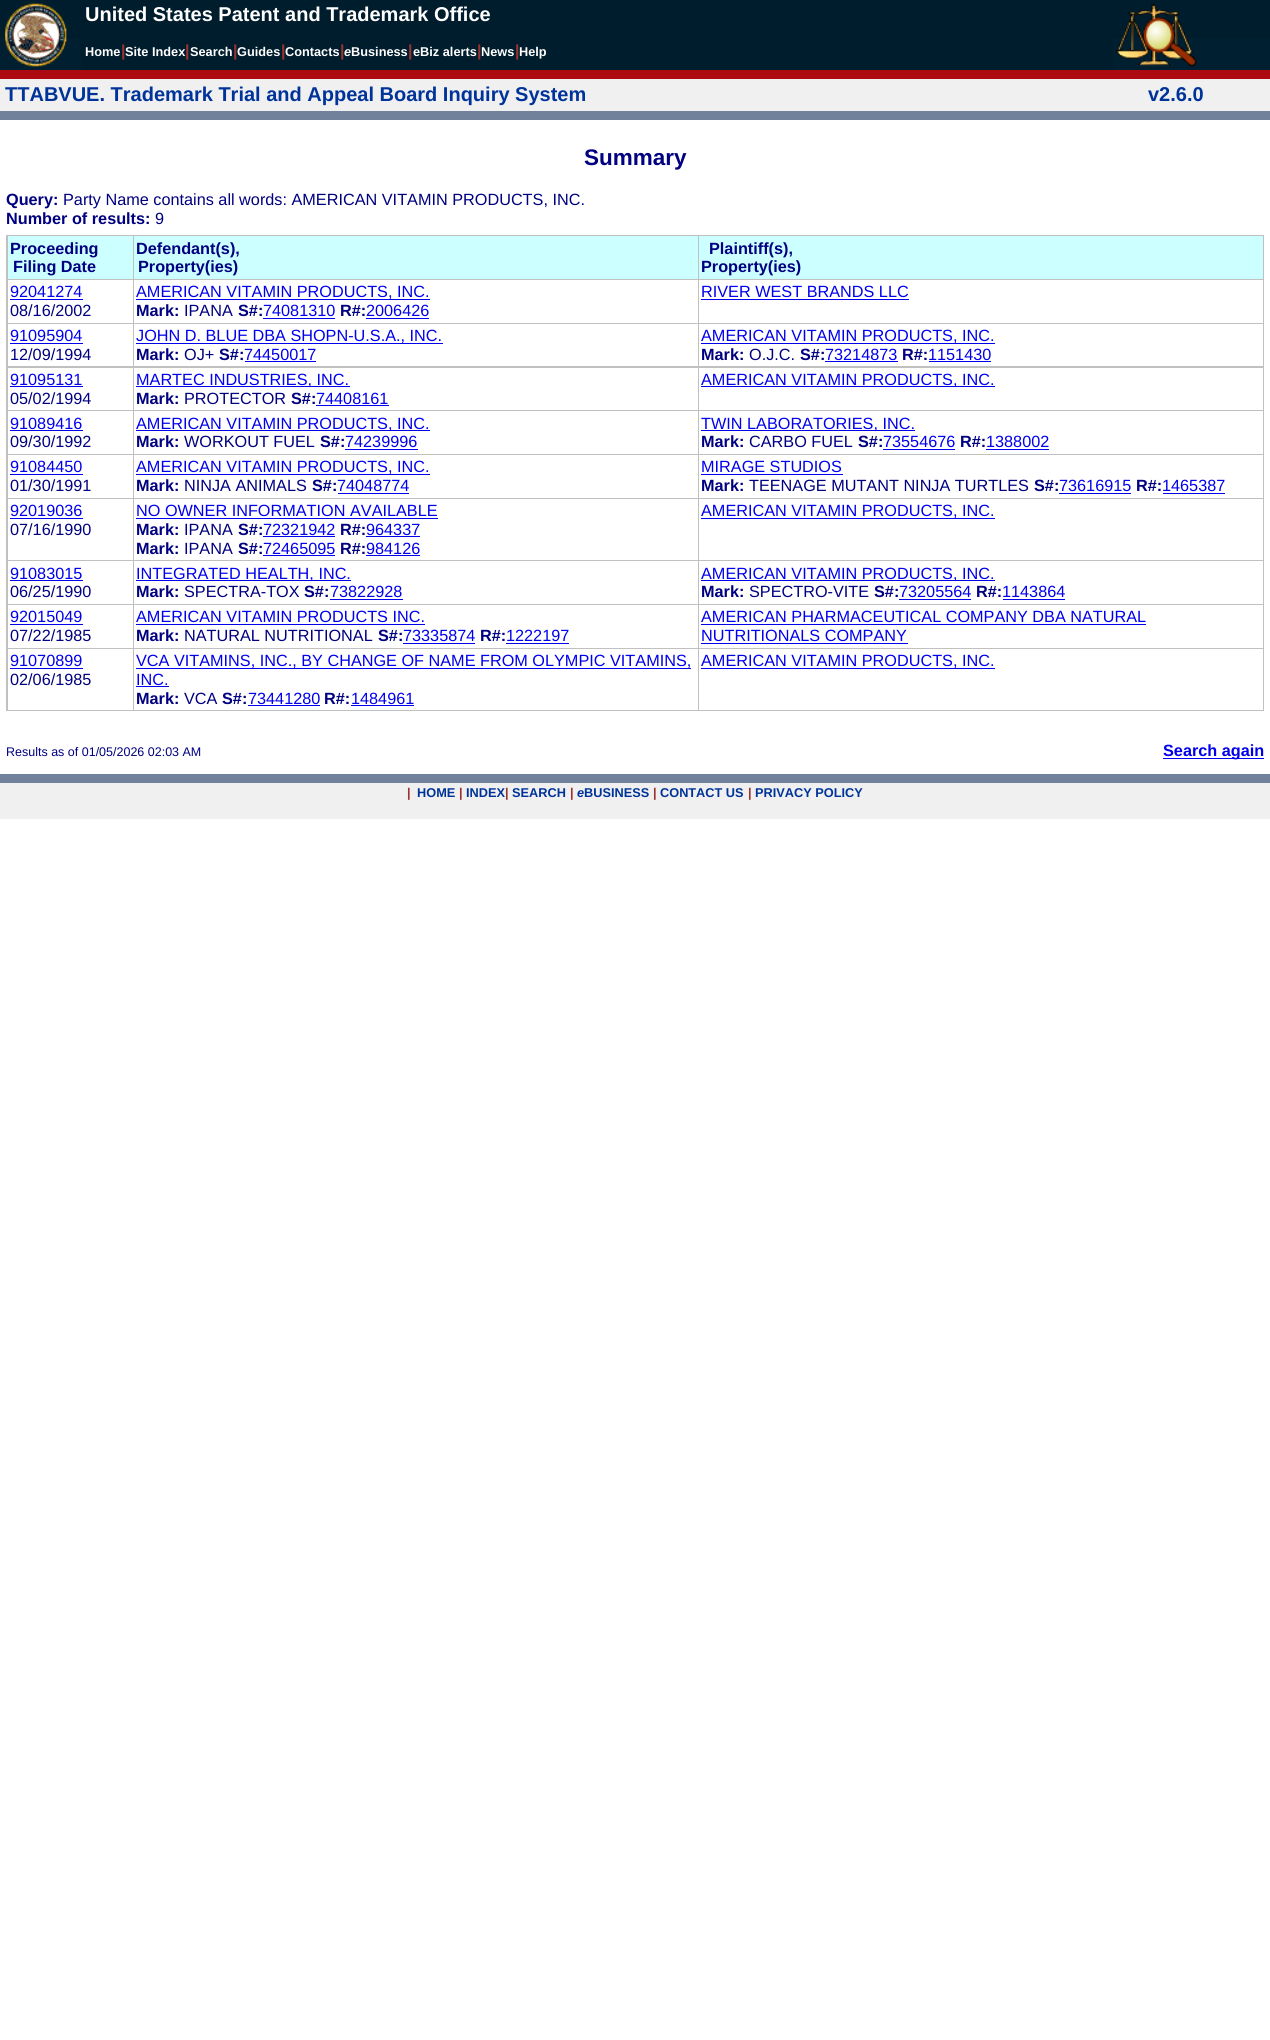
import math
import cairocffi as cairo

surface = cairo.ImageSurface(cairo.FORMAT_RGB24, 1270, 2040)
cr = cairo.Context(surface)
options = cairo.FontOptions()
options.set_hint_metrics(cairo.HINT_METRICS_OFF)
options.set_hint_style(cairo.HINT_STYLE_NONE)
cr.set_font_options(options)
cr.set_miter_limit(4)


def use_color(code):
    cr.set_source_rgb(*(v / 255 for v in bytes.fromhex(code[-6:])))


def picture(path, x, y, w, h):
    cr.save()
    cr.set_source_surface(cairo.ImageSurface.create_from_png(path), x, y)
    cr.rectangle(x, y, w, h)
    cr.fill()
    cr.restore()


use_color("#ffffff")
cr.paint()
use_color("#001d2d")
cr.rectangle(0, 0, 1270, 38)
cr.fill()
use_color("#002032")
cr.rectangle(0, 38, 1270, 32)
cr.fill()
picture("img1.png", 5, 3, 62, 64)
cr.select_font_face("Liberation Sans", cairo.FONT_SLANT_NORMAL, cairo.FONT_WEIGHT_BOLD)
cr.set_font_size(20)
use_color("#ffffff")
cr.move_to(85, 21)
cr.show_text("United States Patent and Trademark Office")
picture("img2.png", 1116, 3, 81, 64)
use_color("#001d2d")
cr.rectangle(81, 38, 1032, 32)
cr.fill()
cr.set_font_size(12.75)
use_color("#ffffff")
cr.move_to(85, 56)
cr.show_text("Home")
cr.set_font_size(16)
use_color("#993333")
cr.move_to(121, 56)
cr.show_text("|")
cr.set_font_size(12.75)
use_color("#ffffff")
cr.move_to(125, 56)
cr.show_text("Site Index")
cr.set_font_size(16)
use_color("#993333")
cr.move_to(185, 56)
cr.show_text("|")
cr.set_font_size(12.75)
use_color("#ffffff")
cr.move_to(190, 56)
cr.show_text("Search")
cr.set_font_size(16)
use_color("#993333")
cr.move_to(233, 56)
cr.show_text("|")
cr.set_font_size(12.75)
use_color("#ffffff")
cr.move_to(237, 56)
cr.show_text("Guides")
cr.set_font_size(16)
use_color("#993333")
cr.move_to(281, 56)
cr.show_text("|")
cr.set_font_size(12.75)
use_color("#ffffff")
cr.move_to(285, 56)
cr.show_text("Contacts")
cr.set_font_size(16)
use_color("#993333")
cr.move_to(340, 56)
cr.show_text("|")
cr.select_font_face("Liberation Sans", cairo.FONT_SLANT_ITALIC, cairo.FONT_WEIGHT_BOLD)
cr.set_font_size(12.75)
use_color("#ffffff")
cr.move_to(344, 56)
cr.show_text("e")
cr.select_font_face("Liberation Sans", cairo.FONT_SLANT_NORMAL, cairo.FONT_WEIGHT_BOLD)
cr.move_to(351, 56)
cr.show_text("Business")
cr.set_font_size(16)
use_color("#993333")
cr.move_to(408, 56)
cr.show_text("|")
cr.set_font_size(12.75)
use_color("#ffffff")
cr.move_to(413, 56)
cr.show_text("eBiz alerts")
cr.set_font_size(16)
use_color("#993333")
cr.move_to(477, 56)
cr.show_text("|")
cr.set_font_size(12.75)
use_color("#ffffff")
cr.move_to(481, 56)
cr.show_text("News")
cr.set_font_size(16)
use_color("#993333")
cr.move_to(515, 56)
cr.show_text("|")
cr.set_font_size(12.75)
use_color("#ffffff")
cr.move_to(519, 56)
cr.show_text("Help")
use_color("#ac0911")
cr.rectangle(0, 70, 1270, 9)
cr.fill()
use_color("#f0f0f0")
cr.rectangle(0, 79, 1270, 32)
cr.fill()
cr.set_font_size(20)
use_color("#003399")
cr.move_to(5, 101)
cr.show_text("TTABVUE. Trademark Trial and Appeal Board Inquiry System")
cr.move_to(1148, 101)
cr.show_text("v2.6.0")
use_color("#71819b")
cr.rectangle(0, 111, 1270, 9)
cr.fill()
cr.set_font_size(22.5)
use_color("#000080")
cr.move_to(584, 165)
cr.show_text("Summary")
cr.set_font_size(16.25)
cr.move_to(6, 205)
cr.show_text("Query:")
cr.select_font_face("Liberation Sans")
cr.move_to(63, 205)
cr.show_text("Party Name contains all words: AMERICAN VITAMIN PRODUCTS, INC.")
cr.select_font_face("Liberation Sans", cairo.FONT_SLANT_NORMAL, cairo.FONT_WEIGHT_BOLD)
cr.move_to(6, 224)
cr.show_text("Number of results:")
cr.select_font_face("Liberation Sans")
cr.move_to(155, 224)
cr.show_text("9")
use_color("#c0c0c0")
cr.rectangle(6, 235, 1258, 476)
cr.fill()
use_color("#ccffff")
cr.rectangle(8, 236, 125, 43)
cr.fill()
cr.select_font_face("Liberation Sans", cairo.FONT_SLANT_NORMAL, cairo.FONT_WEIGHT_BOLD)
use_color("#000080")
cr.move_to(10, 254)
cr.show_text("Proceeding")
cr.move_to(13, 272)
cr.show_text("Filing Date")
use_color("#ccffff")
cr.rectangle(134, 236, 564, 43)
cr.fill()
use_color("#000080")
cr.move_to(136, 254)
cr.show_text("Defendant(s),")
cr.move_to(138, 272)
cr.show_text("Property(ies)")
use_color("#ccffff")
cr.rectangle(699, 236, 564, 43)
cr.fill()
use_color("#000080")
cr.move_to(709, 254)
cr.show_text("Plaintiff(s),")
cr.move_to(701, 272)
cr.show_text("Property(ies)")
use_color("#ffffff")
cr.rectangle(8, 280, 125, 43)
cr.fill()
cr.select_font_face("Liberation Sans")
use_color("#0000ee")
cr.move_to(10, 297)
cr.show_text("92041274")
cr.rectangle(10, 299, 73, 1)
cr.fill()
use_color("#000080")
cr.move_to(10, 316)
cr.show_text("08/16/2002")
use_color("#ffffff")
cr.rectangle(134, 280, 564, 43)
cr.fill()
use_color("#0000ee")
cr.rectangle(136, 299, 294, 1)
cr.fill()
cr.move_to(136, 297)
cr.show_text("AMERICAN VITAMIN PRODUCTS, INC.")
cr.select_font_face("Liberation Sans", cairo.FONT_SLANT_NORMAL, cairo.FONT_WEIGHT_BOLD)
use_color("#000080")
cr.move_to(136, 316)
cr.show_text("Mark:")
cr.select_font_face("Liberation Sans")
cr.move_to(184, 316)
cr.show_text("IPANA")
cr.select_font_face("Liberation Sans", cairo.FONT_SLANT_NORMAL, cairo.FONT_WEIGHT_BOLD)
cr.move_to(238, 316)
cr.show_text("S#:")
cr.select_font_face("Liberation Sans")
use_color("#0000ee")
cr.move_to(263, 316)
cr.show_text("74081310")
cr.rectangle(263, 318, 72, 1)
cr.fill()
cr.select_font_face("Liberation Sans", cairo.FONT_SLANT_NORMAL, cairo.FONT_WEIGHT_BOLD)
use_color("#000080")
cr.move_to(340, 316)
cr.show_text("R#:")
cr.select_font_face("Liberation Sans")
use_color("#0000ee")
cr.move_to(366, 316)
cr.show_text("2006426")
cr.rectangle(366, 318, 63, 1)
cr.fill()
use_color("#ffffff")
cr.rectangle(699, 280, 564, 43)
cr.fill()
use_color("#0000ee")
cr.move_to(701, 297)
cr.show_text("RIVER WEST BRANDS LLC")
cr.rectangle(701, 299, 208, 1)
cr.fill()
use_color("#ffffff")
cr.rectangle(8, 324, 125, 42)
cr.fill()
use_color("#0000ee")
cr.move_to(10, 341)
cr.show_text("91095904")
cr.rectangle(10, 343, 73, 1)
cr.fill()
use_color("#000080")
cr.move_to(10, 360)
cr.show_text("12/09/1994")
use_color("#ffffff")
cr.rectangle(134, 324, 564, 42)
cr.fill()
use_color("#0000ee")
cr.rectangle(136, 343, 307, 1)
cr.fill()
cr.move_to(136, 341)
cr.show_text("JOHN D. BLUE DBA SHOPN-U.S.A., INC.")
cr.select_font_face("Liberation Sans", cairo.FONT_SLANT_NORMAL, cairo.FONT_WEIGHT_BOLD)
use_color("#000080")
cr.move_to(136, 360)
cr.show_text("Mark:")
cr.select_font_face("Liberation Sans")
cr.move_to(184, 360)
cr.show_text("OJ+")
cr.select_font_face("Liberation Sans", cairo.FONT_SLANT_NORMAL, cairo.FONT_WEIGHT_BOLD)
cr.move_to(219, 360)
cr.show_text("S#:")
cr.select_font_face("Liberation Sans")
use_color("#0000ee")
cr.move_to(244, 360)
cr.show_text("74450017")
cr.rectangle(245, 361, 71, 1)
cr.fill()
use_color("#ffffff")
cr.rectangle(699, 324, 564, 42)
cr.fill()
use_color("#0000ee")
cr.rectangle(701, 343, 294, 1)
cr.fill()
cr.move_to(701, 341)
cr.show_text("AMERICAN VITAMIN PRODUCTS, INC.")
cr.select_font_face("Liberation Sans", cairo.FONT_SLANT_NORMAL, cairo.FONT_WEIGHT_BOLD)
use_color("#000080")
cr.move_to(701, 360)
cr.show_text("Mark:")
cr.select_font_face("Liberation Sans")
cr.move_to(749, 360)
cr.show_text("O.J.C.")
cr.select_font_face("Liberation Sans", cairo.FONT_SLANT_NORMAL, cairo.FONT_WEIGHT_BOLD)
cr.move_to(800, 360)
cr.show_text("S#:")
cr.select_font_face("Liberation Sans")
use_color("#0000ee")
cr.move_to(825, 360)
cr.show_text("73214873")
cr.rectangle(825, 361, 73, 1)
cr.fill()
cr.select_font_face("Liberation Sans", cairo.FONT_SLANT_NORMAL, cairo.FONT_WEIGHT_BOLD)
use_color("#000080")
cr.move_to(902, 360)
cr.show_text("R#:")
cr.select_font_face("Liberation Sans")
use_color("#0000ee")
cr.move_to(928, 360)
cr.show_text("1151430")
cr.rectangle(929, 361, 62, 1)
cr.fill()
use_color("#ffffff")
cr.rectangle(8, 368, 125, 42)
cr.fill()
use_color("#0000ee")
cr.move_to(10, 385)
cr.show_text("91095131")
cr.rectangle(10, 386, 73, 1)
cr.fill()
use_color("#000080")
cr.move_to(10, 404)
cr.show_text("05/02/1994")
use_color("#ffffff")
cr.rectangle(134, 368, 564, 42)
cr.fill()
use_color("#0000ee")
cr.rectangle(136, 386, 214, 1)
cr.fill()
cr.move_to(136, 385)
cr.show_text("MARTEC INDUSTRIES, INC.")
cr.select_font_face("Liberation Sans", cairo.FONT_SLANT_NORMAL, cairo.FONT_WEIGHT_BOLD)
use_color("#000080")
cr.move_to(136, 404)
cr.show_text("Mark:")
cr.select_font_face("Liberation Sans")
cr.move_to(184, 404)
cr.show_text("PROTECTOR")
cr.select_font_face("Liberation Sans", cairo.FONT_SLANT_NORMAL, cairo.FONT_WEIGHT_BOLD)
cr.move_to(291, 404)
cr.show_text("S#:")
cr.select_font_face("Liberation Sans")
use_color("#0000ee")
cr.move_to(316, 404)
cr.show_text("74408161")
cr.rectangle(316, 405, 73, 1)
cr.fill()
use_color("#ffffff")
cr.rectangle(699, 368, 564, 42)
cr.fill()
use_color("#0000ee")
cr.rectangle(701, 386, 294, 1)
cr.fill()
cr.move_to(701, 385)
cr.show_text("AMERICAN VITAMIN PRODUCTS, INC.")
use_color("#ffffff")
cr.rectangle(8, 411, 125, 43)
cr.fill()
use_color("#0000ee")
cr.move_to(10, 429)
cr.show_text("91089416")
cr.rectangle(10, 430, 73, 1)
cr.fill()
use_color("#000080")
cr.move_to(10, 447)
cr.show_text("09/30/1992")
use_color("#ffffff")
cr.rectangle(134, 411, 564, 43)
cr.fill()
use_color("#0000ee")
cr.rectangle(136, 430, 294, 1)
cr.fill()
cr.move_to(136, 429)
cr.show_text("AMERICAN VITAMIN PRODUCTS, INC.")
cr.select_font_face("Liberation Sans", cairo.FONT_SLANT_NORMAL, cairo.FONT_WEIGHT_BOLD)
use_color("#000080")
cr.move_to(136, 447)
cr.show_text("Mark:")
cr.select_font_face("Liberation Sans")
cr.move_to(184, 447)
cr.show_text("WORKOUT FUEL")
cr.select_font_face("Liberation Sans", cairo.FONT_SLANT_NORMAL, cairo.FONT_WEIGHT_BOLD)
cr.move_to(320, 447)
cr.show_text("S#:")
cr.select_font_face("Liberation Sans")
use_color("#0000ee")
cr.move_to(345, 447)
cr.show_text("74239996")
cr.rectangle(345, 449, 73, 1)
cr.fill()
use_color("#ffffff")
cr.rectangle(699, 411, 564, 43)
cr.fill()
use_color("#0000ee")
cr.rectangle(701, 430, 214, 1)
cr.fill()
cr.move_to(701, 429)
cr.show_text("TWIN LABORATORIES, INC.")
cr.select_font_face("Liberation Sans", cairo.FONT_SLANT_NORMAL, cairo.FONT_WEIGHT_BOLD)
use_color("#000080")
cr.move_to(701, 447)
cr.show_text("Mark:")
cr.select_font_face("Liberation Sans")
cr.move_to(749, 447)
cr.show_text("CARBO FUEL")
cr.select_font_face("Liberation Sans", cairo.FONT_SLANT_NORMAL, cairo.FONT_WEIGHT_BOLD)
cr.move_to(858, 447)
cr.show_text("S#:")
cr.select_font_face("Liberation Sans")
use_color("#0000ee")
cr.move_to(883, 447)
cr.show_text("73554676")
cr.rectangle(883, 449, 72, 1)
cr.fill()
cr.select_font_face("Liberation Sans", cairo.FONT_SLANT_NORMAL, cairo.FONT_WEIGHT_BOLD)
use_color("#000080")
cr.move_to(960, 447)
cr.show_text("R#:")
cr.select_font_face("Liberation Sans")
use_color("#0000ee")
cr.move_to(986, 447)
cr.show_text("1388002")
cr.rectangle(986, 449, 63, 1)
cr.fill()
use_color("#ffffff")
cr.rectangle(8, 455, 125, 43)
cr.fill()
use_color("#0000ee")
cr.move_to(10, 472)
cr.show_text("91084450")
cr.rectangle(10, 474, 73, 1)
cr.fill()
use_color("#000080")
cr.move_to(10, 491)
cr.show_text("01/30/1991")
use_color("#ffffff")
cr.rectangle(134, 455, 564, 43)
cr.fill()
use_color("#0000ee")
cr.rectangle(136, 474, 294, 1)
cr.fill()
cr.move_to(136, 472)
cr.show_text("AMERICAN VITAMIN PRODUCTS, INC.")
cr.select_font_face("Liberation Sans", cairo.FONT_SLANT_NORMAL, cairo.FONT_WEIGHT_BOLD)
use_color("#000080")
cr.move_to(136, 491)
cr.show_text("Mark:")
cr.select_font_face("Liberation Sans")
cr.move_to(184, 491)
cr.show_text("NINJA ANIMALS")
cr.select_font_face("Liberation Sans", cairo.FONT_SLANT_NORMAL, cairo.FONT_WEIGHT_BOLD)
cr.move_to(312, 491)
cr.show_text("S#:")
cr.select_font_face("Liberation Sans")
use_color("#0000ee")
cr.move_to(337, 491)
cr.show_text("74048774")
cr.rectangle(338, 493, 71, 1)
cr.fill()
use_color("#ffffff")
cr.rectangle(699, 455, 564, 43)
cr.fill()
use_color("#0000ee")
cr.move_to(701, 472)
cr.show_text("MIRAGE STUDIOS")
cr.rectangle(701, 474, 142, 1)
cr.fill()
cr.select_font_face("Liberation Sans", cairo.FONT_SLANT_NORMAL, cairo.FONT_WEIGHT_BOLD)
use_color("#000080")
cr.move_to(701, 491)
cr.show_text("Mark:")
cr.select_font_face("Liberation Sans")
cr.move_to(749, 491)
cr.show_text("TEENAGE MUTANT NINJA TURTLES")
cr.select_font_face("Liberation Sans", cairo.FONT_SLANT_NORMAL, cairo.FONT_WEIGHT_BOLD)
cr.move_to(1034, 491)
cr.show_text("S#:")
cr.select_font_face("Liberation Sans")
use_color("#0000ee")
cr.move_to(1059, 491)
cr.show_text("73616915")
cr.rectangle(1059, 493, 72, 1)
cr.fill()
cr.select_font_face("Liberation Sans", cairo.FONT_SLANT_NORMAL, cairo.FONT_WEIGHT_BOLD)
use_color("#000080")
cr.move_to(1136, 491)
cr.show_text("R#:")
cr.select_font_face("Liberation Sans")
use_color("#0000ee")
cr.move_to(1162, 491)
cr.show_text("1465387")
cr.rectangle(1163, 493, 62, 1)
cr.fill()
use_color("#ffffff")
cr.rectangle(8, 499, 125, 61)
cr.fill()
use_color("#0000ee")
cr.move_to(10, 516)
cr.show_text("92019036")
cr.rectangle(10, 518, 73, 1)
cr.fill()
use_color("#000080")
cr.move_to(10, 535)
cr.show_text("07/16/1990")
use_color("#ffffff")
cr.rectangle(134, 499, 564, 61)
cr.fill()
use_color("#0000ee")
cr.move_to(136, 516)
cr.show_text("NO OWNER INFORMATION AVAILABLE")
cr.rectangle(136, 518, 302, 1)
cr.fill()
cr.select_font_face("Liberation Sans", cairo.FONT_SLANT_NORMAL, cairo.FONT_WEIGHT_BOLD)
use_color("#000080")
cr.move_to(136, 535)
cr.show_text("Mark:")
cr.select_font_face("Liberation Sans")
cr.move_to(184, 535)
cr.show_text("IPANA")
cr.select_font_face("Liberation Sans", cairo.FONT_SLANT_NORMAL, cairo.FONT_WEIGHT_BOLD)
cr.move_to(238, 535)
cr.show_text("S#:")
cr.select_font_face("Liberation Sans")
use_color("#0000ee")
cr.move_to(263, 535)
cr.show_text("72321942")
cr.rectangle(263, 536, 72, 1)
cr.fill()
cr.select_font_face("Liberation Sans", cairo.FONT_SLANT_NORMAL, cairo.FONT_WEIGHT_BOLD)
use_color("#000080")
cr.move_to(340, 535)
cr.show_text("R#:")
cr.select_font_face("Liberation Sans")
use_color("#0000ee")
cr.move_to(366, 535)
cr.show_text("964337")
cr.rectangle(366, 536, 54, 1)
cr.fill()
cr.select_font_face("Liberation Sans", cairo.FONT_SLANT_NORMAL, cairo.FONT_WEIGHT_BOLD)
use_color("#000080")
cr.move_to(136, 554)
cr.show_text("Mark:")
cr.select_font_face("Liberation Sans")
cr.move_to(184, 554)
cr.show_text("IPANA")
cr.select_font_face("Liberation Sans", cairo.FONT_SLANT_NORMAL, cairo.FONT_WEIGHT_BOLD)
cr.move_to(238, 554)
cr.show_text("S#:")
cr.select_font_face("Liberation Sans")
use_color("#0000ee")
cr.move_to(263, 554)
cr.show_text("72465095")
cr.rectangle(263, 555, 72, 1)
cr.fill()
cr.select_font_face("Liberation Sans", cairo.FONT_SLANT_NORMAL, cairo.FONT_WEIGHT_BOLD)
use_color("#000080")
cr.move_to(340, 554)
cr.show_text("R#:")
cr.select_font_face("Liberation Sans")
use_color("#0000ee")
cr.move_to(366, 554)
cr.show_text("984126")
cr.rectangle(366, 555, 54, 1)
cr.fill()
use_color("#ffffff")
cr.rectangle(699, 499, 564, 61)
cr.fill()
use_color("#0000ee")
cr.rectangle(701, 518, 294, 1)
cr.fill()
cr.move_to(701, 516)
cr.show_text("AMERICAN VITAMIN PRODUCTS, INC.")
use_color("#ffffff")
cr.rectangle(8, 561, 125, 43)
cr.fill()
use_color("#0000ee")
cr.move_to(10, 579)
cr.show_text("91083015")
cr.rectangle(10, 580, 73, 1)
cr.fill()
use_color("#000080")
cr.move_to(10, 597)
cr.show_text("06/25/1990")
use_color("#ffffff")
cr.rectangle(134, 561, 564, 43)
cr.fill()
use_color("#0000ee")
cr.rectangle(136, 580, 215, 1)
cr.fill()
cr.move_to(136, 579)
cr.show_text("INTEGRATED HEALTH, INC.")
cr.select_font_face("Liberation Sans", cairo.FONT_SLANT_NORMAL, cairo.FONT_WEIGHT_BOLD)
use_color("#000080")
cr.move_to(136, 597)
cr.show_text("Mark:")
cr.select_font_face("Liberation Sans")
cr.move_to(184, 597)
cr.show_text("SPECTRA-TOX")
cr.select_font_face("Liberation Sans", cairo.FONT_SLANT_NORMAL, cairo.FONT_WEIGHT_BOLD)
cr.move_to(304, 597)
cr.show_text("S#:")
cr.select_font_face("Liberation Sans")
use_color("#0000ee")
cr.move_to(330, 597)
cr.show_text("73822928")
cr.rectangle(330, 599, 73, 1)
cr.fill()
use_color("#ffffff")
cr.rectangle(699, 561, 564, 43)
cr.fill()
use_color("#0000ee")
cr.rectangle(701, 580, 294, 1)
cr.fill()
cr.move_to(701, 579)
cr.show_text("AMERICAN VITAMIN PRODUCTS, INC.")
cr.select_font_face("Liberation Sans", cairo.FONT_SLANT_NORMAL, cairo.FONT_WEIGHT_BOLD)
use_color("#000080")
cr.move_to(701, 597)
cr.show_text("Mark:")
cr.select_font_face("Liberation Sans")
cr.move_to(749, 597)
cr.show_text("SPECTRO-VITE")
cr.select_font_face("Liberation Sans", cairo.FONT_SLANT_NORMAL, cairo.FONT_WEIGHT_BOLD)
cr.move_to(874, 597)
cr.show_text("S#:")
cr.select_font_face("Liberation Sans")
use_color("#0000ee")
cr.move_to(899, 597)
cr.show_text("73205564")
cr.rectangle(899, 599, 72, 1)
cr.fill()
cr.select_font_face("Liberation Sans", cairo.FONT_SLANT_NORMAL, cairo.FONT_WEIGHT_BOLD)
use_color("#000080")
cr.move_to(976, 597)
cr.show_text("R#:")
cr.select_font_face("Liberation Sans")
use_color("#0000ee")
cr.move_to(1002, 597)
cr.show_text("1143864")
cr.rectangle(1003, 599, 62, 1)
cr.fill()
use_color("#ffffff")
cr.rectangle(8, 605, 125, 43)
cr.fill()
use_color("#0000ee")
cr.move_to(10, 622)
cr.show_text("92015049")
cr.rectangle(10, 624, 73, 1)
cr.fill()
use_color("#000080")
cr.move_to(10, 641)
cr.show_text("07/22/1985")
use_color("#ffffff")
cr.rectangle(134, 605, 564, 43)
cr.fill()
use_color("#0000ee")
cr.move_to(136, 622)
cr.show_text("AMERICAN VITAMIN PRODUCTS INC.")
cr.rectangle(136, 624, 289, 1)
cr.fill()
cr.select_font_face("Liberation Sans", cairo.FONT_SLANT_NORMAL, cairo.FONT_WEIGHT_BOLD)
use_color("#000080")
cr.move_to(136, 641)
cr.show_text("Mark:")
cr.select_font_face("Liberation Sans")
cr.move_to(184, 641)
cr.show_text("NATURAL NUTRITIONAL")
cr.select_font_face("Liberation Sans", cairo.FONT_SLANT_NORMAL, cairo.FONT_WEIGHT_BOLD)
cr.move_to(378, 641)
cr.show_text("S#:")
cr.select_font_face("Liberation Sans")
use_color("#0000ee")
cr.move_to(403, 641)
cr.show_text("73335874")
cr.rectangle(403, 643, 72, 1)
cr.fill()
cr.select_font_face("Liberation Sans", cairo.FONT_SLANT_NORMAL, cairo.FONT_WEIGHT_BOLD)
use_color("#000080")
cr.move_to(480, 641)
cr.show_text("R#:")
cr.select_font_face("Liberation Sans")
use_color("#0000ee")
cr.move_to(506, 641)
cr.show_text("1222197")
cr.rectangle(506, 643, 63, 1)
cr.fill()
use_color("#ffffff")
cr.rectangle(699, 605, 564, 43)
cr.fill()
use_color("#0000ee")
cr.move_to(701, 622)
cr.show_text("AMERICAN PHARMACEUTICAL COMPANY DBA NATURAL")
cr.rectangle(701, 624, 445, 1)
cr.fill()
cr.move_to(701, 641)
cr.show_text("NUTRITIONALS COMPANY")
cr.rectangle(701, 643, 207, 1)
cr.fill()
use_color("#ffffff")
cr.rectangle(8, 649, 125, 61)
cr.fill()
use_color("#0000ee")
cr.move_to(10, 666)
cr.show_text("91070899")
cr.rectangle(10, 668, 73, 1)
cr.fill()
use_color("#000080")
cr.move_to(10, 685)
cr.show_text("02/06/1985")
use_color("#ffffff")
cr.rectangle(134, 649, 564, 61)
cr.fill()
use_color("#0000ee")
cr.rectangle(136, 668, 555, 1)
cr.fill()
cr.move_to(136, 666)
cr.show_text("VCA VITAMINS, INC., BY CHANGE OF NAME FROM OLYMPIC VITAMINS,")
cr.move_to(136, 685)
cr.show_text("INC.")
cr.rectangle(136, 686, 33, 1)
cr.fill()
cr.select_font_face("Liberation Sans", cairo.FONT_SLANT_NORMAL, cairo.FONT_WEIGHT_BOLD)
use_color("#000080")
cr.move_to(136, 704)
cr.show_text("Mark:")
cr.select_font_face("Liberation Sans")
cr.move_to(184, 704)
cr.show_text("VCA")
cr.select_font_face("Liberation Sans", cairo.FONT_SLANT_NORMAL, cairo.FONT_WEIGHT_BOLD)
cr.move_to(222, 704)
cr.show_text("S#:")
cr.select_font_face("Liberation Sans")
use_color("#0000ee")
cr.move_to(248, 704)
cr.show_text("73441280")
cr.rectangle(248, 705, 72, 1)
cr.fill()
cr.select_font_face("Liberation Sans", cairo.FONT_SLANT_NORMAL, cairo.FONT_WEIGHT_BOLD)
use_color("#000080")
cr.move_to(324, 704)
cr.show_text("R#:")
cr.select_font_face("Liberation Sans")
use_color("#0000ee")
cr.move_to(351, 704)
cr.show_text("1484961")
cr.rectangle(351, 705, 63, 1)
cr.fill()
use_color("#ffffff")
cr.rectangle(699, 649, 564, 61)
cr.fill()
use_color("#0000ee")
cr.rectangle(701, 668, 294, 1)
cr.fill()
cr.move_to(701, 666)
cr.show_text("AMERICAN VITAMIN PRODUCTS, INC.")
cr.set_font_size(12.5)
use_color("#000080")
cr.move_to(6, 756)
cr.show_text("Results as of 01/05/2026 02:03 AM")
use_color("#0000ee")
cr.rectangle(1163, 758, 101, 1)
cr.fill()
cr.select_font_face("Liberation Sans", cairo.FONT_SLANT_NORMAL, cairo.FONT_WEIGHT_BOLD)
cr.set_font_size(16.25)
cr.move_to(1163, 756)
cr.show_text("Search again")
use_color("#71819b")
cr.rectangle(0, 774, 1270, 9)
cr.fill()
use_color("#f0f0f0")
cr.rectangle(0, 783, 1270, 36)
cr.fill()
cr.set_font_size(12.75)
use_color("#993333")
cr.move_to(407, 797)
cr.show_text("|")
use_color("#003399")
cr.move_to(417, 797)
cr.show_text("HOME")
use_color("#993333")
cr.move_to(459, 797)
cr.show_text("|")
use_color("#003399")
cr.move_to(466, 797)
cr.show_text("INDEX")
use_color("#993333")
cr.move_to(505, 797)
cr.show_text("|")
use_color("#003399")
cr.move_to(512, 797)
cr.show_text("SEARCH")
use_color("#993333")
cr.move_to(570, 797)
cr.show_text("|")
cr.select_font_face("Liberation Sans", cairo.FONT_SLANT_ITALIC, cairo.FONT_WEIGHT_BOLD)
use_color("#003399")
cr.move_to(577, 797)
cr.show_text("e")
cr.select_font_face("Liberation Sans", cairo.FONT_SLANT_NORMAL, cairo.FONT_WEIGHT_BOLD)
cr.move_to(584, 797)
cr.show_text("BUSINESS")
use_color("#993333")
cr.move_to(653, 797)
cr.show_text("|")
use_color("#003399")
cr.move_to(660, 797)
cr.show_text("CONTACT US")
use_color("#993333")
cr.move_to(748, 797)
cr.show_text("|")
use_color("#003399")
cr.move_to(755, 797)
cr.show_text("PRIVACY POLICY")
surface.write_to_png("result.png")
